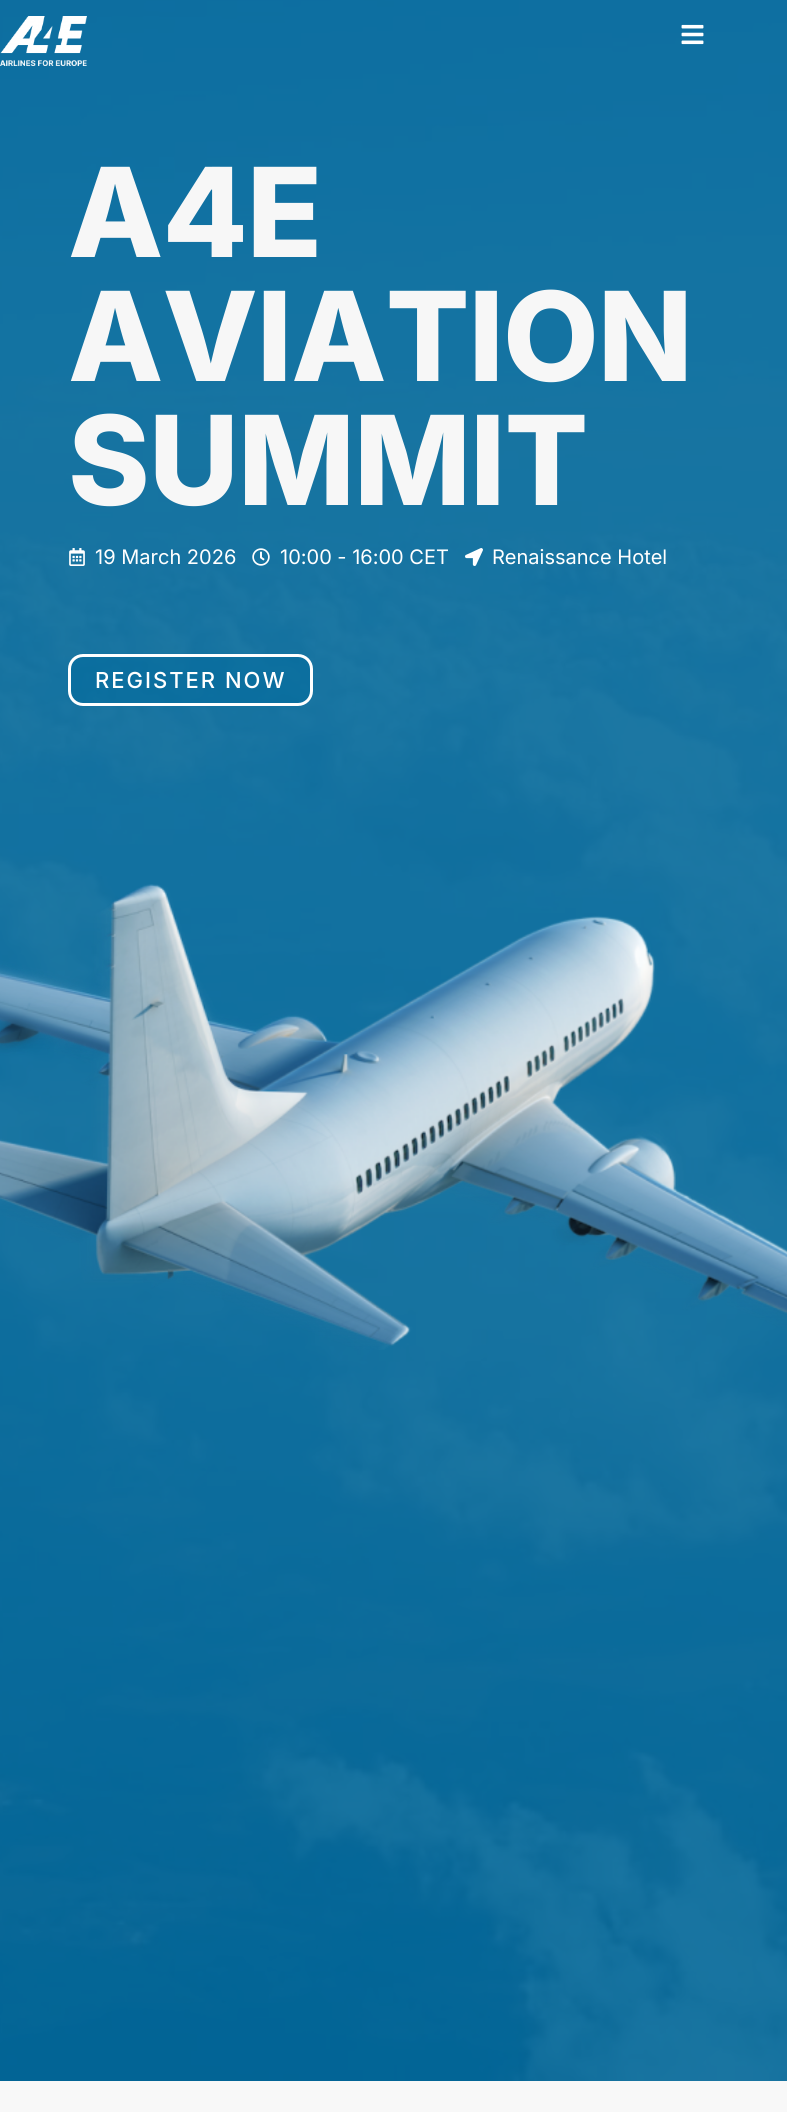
import math
import cairocffi as cairo

surface = cairo.ImageSurface(cairo.FORMAT_RGB24, 787, 2112)
cr = cairo.Context(surface)
options = cairo.FontOptions()
options.set_hint_metrics(cairo.HINT_METRICS_OFF)
options.set_hint_style(cairo.HINT_STYLE_NONE)
cr.set_font_options(options)
cr.set_miter_limit(4)


def use_color(code):
    cr.set_source_rgb(*(v / 255 for v in bytes.fromhex(code[-6:])))


def spaced_text(x, y, s, letter, word):
    cr.move_to(x, y)
    for ch in s:
        cr.show_text(ch)
        cr.rel_move_to(letter + word * (ch == ' '), 0)


def round_rect(x, y, w, h, r):
    cr.new_sub_path()
    for i, (u, v) in enumerate([(x + w - r, y + h - r), (x + r, y + h - r), (x + r, y + r), (x + w - r, y + r)]):
        cr.arc(u, v, r, i * math.pi / 2, (i + 1) * math.pi / 2)
    cr.close_path()


def shadow(x, y, w, h, r, blur, alpha):
    cr.push_group_with_content(cairo.CONTENT_ALPHA)
    cr.set_operator(cairo.OPERATOR_SOURCE)
    for i in range(15, -16, -2):
        e = blur * i / 6
        if min(w, h) + 2 * e > 0:
            cr.set_source_rgba(0, 0, 0, alpha * math.erfc((i - 1) / 8.5) / 2)
            round_rect(x - e, y - e, w + 2 * e, h + 2 * e, max(0, min(r + e + blur * .6, min(w, h) / 2 + e)))
            cr.fill()
    cr.mask(cr.pop_group())


def picture(path, x, y, w, h):
    cr.save()
    cr.set_source_surface(cairo.ImageSurface.create_from_png(path), x, y)
    cr.rectangle(x, y, w, h)
    cr.fill()
    cr.restore()


use_color("#ffffff")
cr.paint()
picture("img3.png", 0, 0, 787, 2081)
picture("img1.png", 0, 16, 87, 50)
picture("img2.png", 681, 24, 23, 21)
cr.select_font_face("Inter ExtraBold")
cr.set_font_size(124)
use_color("#f7f7f7")
spaced_text(68, 257, "A4E", -1, 0)
spaced_text(68, 381, "AVIATION", -1, 0)
spaced_text(68, 505, "SUMMIT", -1, 0)
picture("img4.png", 69, 548, 16, 18)
cr.select_font_face("Inter")
cr.set_font_size(20)
use_color("#ffffff")
cr.move_to(95, 564)
cr.show_text("19 March 2026")
picture("img5.png", 252, 548, 18, 18)
cr.move_to(280, 564)
cr.show_text("10:00 - 16:00 CET")
picture("img6.png", 465, 548, 18, 18)
cr.move_to(492, 564)
cr.show_text("Renaissance Hotel")
use_color("#00699d")
shadow(68, 654, 245, 52, 15, 0.5, 0.51)
round_rect(69.5, 655.5, 242, 49, 13.5)
use_color("#ffffff")
cr.set_line_width(3)
cr.stroke()
cr.select_font_face("Inter Medium")
cr.set_font_size(22)
spaced_text(95, 688, "REGISTER NOW", 2, 0)
picture("img7.png", 0, 884, 787, 466)
use_color("#f8f8f8")
cr.rectangle(0, 2081, 787, 31)
cr.fill()
surface.write_to_png("result.png")
